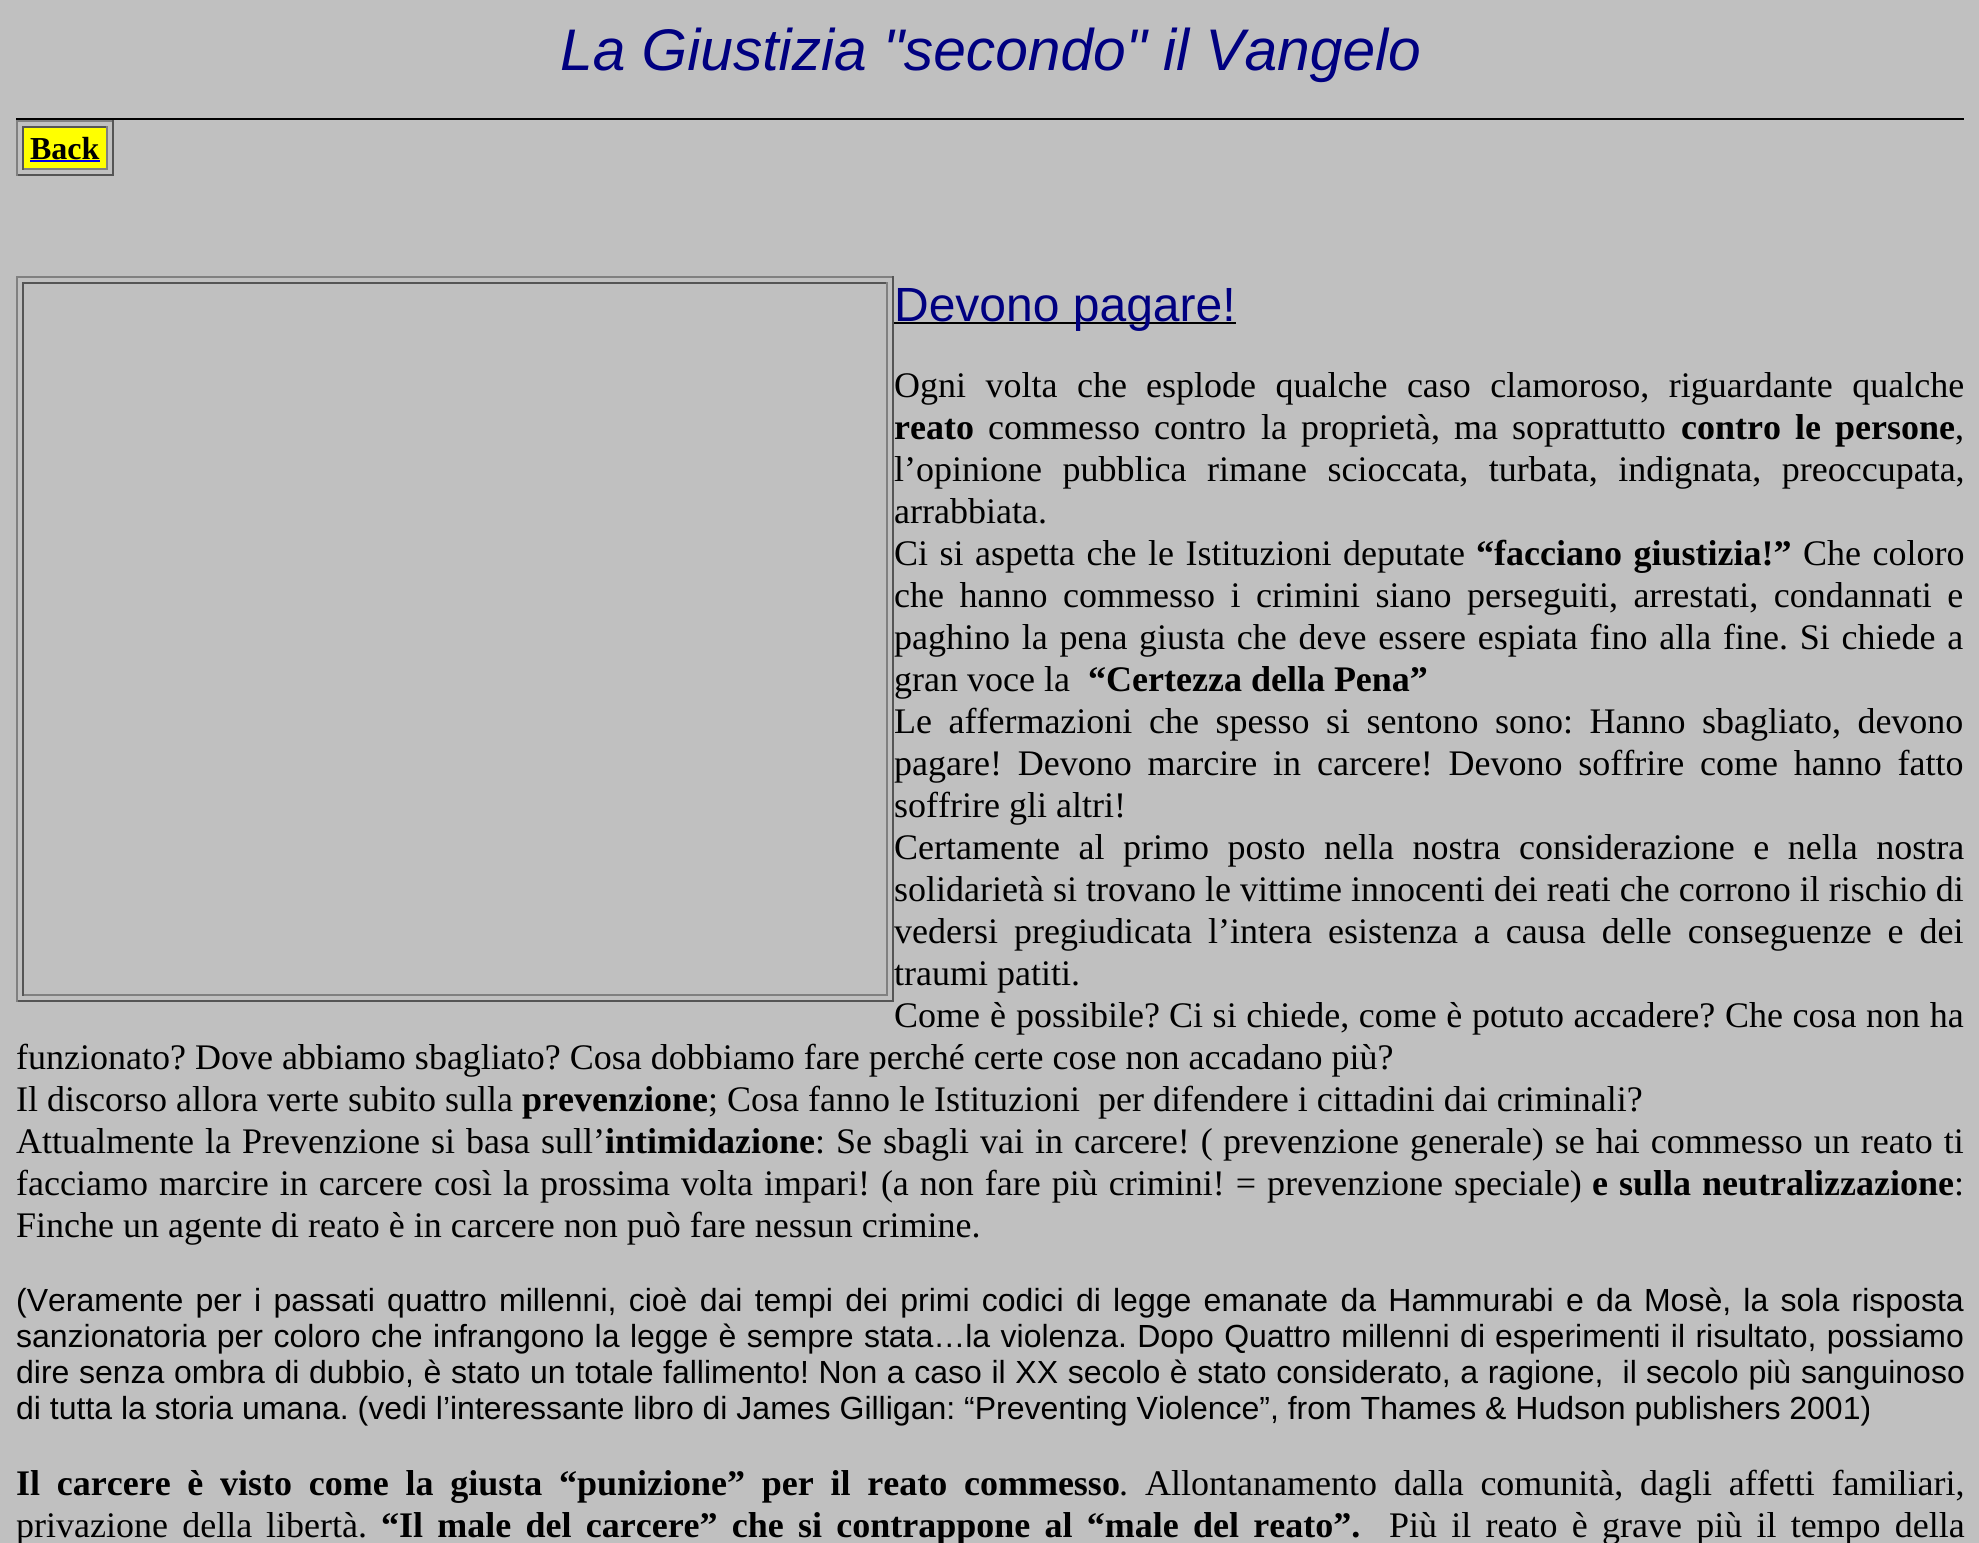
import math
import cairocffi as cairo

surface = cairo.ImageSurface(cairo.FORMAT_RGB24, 1979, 1543)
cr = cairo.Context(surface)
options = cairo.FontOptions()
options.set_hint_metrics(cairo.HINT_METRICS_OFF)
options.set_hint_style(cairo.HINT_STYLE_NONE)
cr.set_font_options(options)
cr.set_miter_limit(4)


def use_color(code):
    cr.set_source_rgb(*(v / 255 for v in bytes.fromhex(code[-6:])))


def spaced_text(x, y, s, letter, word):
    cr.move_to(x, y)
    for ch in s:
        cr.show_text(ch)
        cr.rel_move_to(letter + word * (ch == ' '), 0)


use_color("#c0c0c0")
cr.paint()
use_color("#000000")
cr.rectangle(16, 118, 1948, 2)
cr.fill()
cr.select_font_face("Liberation Sans", cairo.FONT_SLANT_ITALIC)
cr.set_font_size(58.7)
use_color("#000080")
cr.move_to(560, 70)
cr.show_text("La Giustizia \"secondo\" il Vangelo")
use_color("#808080")
cr.rectangle(16, 120, 98, 2)
cr.fill()
use_color("#555555")
cr.rectangle(112, 120, 2, 56)
cr.fill()
cr.rectangle(16, 174, 98, 2)
cr.fill()
use_color("#808080")
cr.rectangle(16, 120, 2, 56)
cr.fill()
use_color("#ffff00")
cr.rectangle(24, 128, 82, 40)
cr.fill()
use_color("#555555")
cr.rectangle(22, 126, 86, 2)
cr.fill()
use_color("#808080")
cr.rectangle(106, 126, 2, 44)
cr.fill()
cr.rectangle(22, 168, 86, 2)
cr.fill()
use_color("#555555")
cr.rectangle(22, 126, 2, 44)
cr.fill()
cr.select_font_face("Liberation Serif", cairo.FONT_SLANT_NORMAL, cairo.FONT_WEIGHT_BOLD)
cr.set_font_size(32)
use_color("#000000")
cr.move_to(30, 159)
cr.show_text("Back")
use_color("#0000ee")
cr.rectangle(30, 160, 70, 2)
cr.fill()
use_color("#808080")
cr.rectangle(16, 276, 878, 2)
cr.fill()
use_color("#555555")
cr.rectangle(892, 276, 2, 726)
cr.fill()
cr.rectangle(16, 1000, 878, 2)
cr.fill()
use_color("#808080")
cr.rectangle(16, 276, 2, 726)
cr.fill()
use_color("#555555")
cr.rectangle(22, 282, 866, 2)
cr.fill()
use_color("#808080")
cr.rectangle(886, 282, 2, 714)
cr.fill()
cr.rectangle(22, 994, 866, 2)
cr.fill()
use_color("#555555")
cr.rectangle(22, 282, 2, 714)
cr.fill()
use_color("#000000")
cr.rectangle(894, 322, 342, 2)
cr.fill()
cr.select_font_face("Liberation Sans")
cr.set_font_size(48)
use_color("#000080")
cr.move_to(894, 321)
cr.show_text("Devono pagare!")
cr.select_font_face("Liberation Serif")
cr.set_font_size(36)
use_color("#000000")
spaced_text(894, 397, "Ogni volta che", 0, 10.5)
spaced_text(1146, 397, "esplode qualche caso clamoroso, riguardante qualche", 0, 10.5)
cr.select_font_face("Liberation Serif", cairo.FONT_SLANT_NORMAL, cairo.FONT_WEIGHT_BOLD)
cr.move_to(894, 439)
cr.show_text("reato")
cr.select_font_face("Liberation Serif")
spaced_text(988, 439, "commesso contro", 0, 5)
spaced_text(1261, 439, "la proprietà, ma soprattutto", 0, 5)
cr.select_font_face("Liberation Serif", cairo.FONT_SLANT_NORMAL, cairo.FONT_WEIGHT_BOLD)
spaced_text(1681, 439, "contro le persone", 0, 5)
cr.select_font_face("Liberation Serif")
cr.move_to(1955, 439)
cr.show_text(",")
spaced_text(894, 481, "l’opinione pubblica", 0, 11.5)
spaced_text(1207, 481, "rimane scioccata, turbata, indignata, preoccupata,", 0, 11.5)
cr.move_to(894, 523)
cr.show_text("arrabbiata.")
spaced_text(894, 565, "Ci si aspetta che", 0, 2.5)
spaced_text(1148, 565, "le Istituzioni deputate", 0, 2.5)
cr.select_font_face("Liberation Serif", cairo.FONT_SLANT_NORMAL, cairo.FONT_WEIGHT_BOLD)
spaced_text(1476, 565, "“facciano giustizia!”", 0, 2.5)
cr.select_font_face("Liberation Serif")
spaced_text(1803, 565, "Che coloro", 0, 2.5)
spaced_text(894, 607, "che hanno", 0, 6.5)
spaced_text(1063, 607, "commesso i crimini siano perseguiti, arrestati, condannati e", 0, 6.5)
spaced_text(894, 649, "paghino la pena", 0, 2.75)
spaced_text(1139, 649, "giusta che deve essere espiata fino alla fine. Si chiede a", 0, 2.75)
cr.move_to(894, 691)
cr.show_text("gran voce la")
cr.select_font_face("Liberation Serif", cairo.FONT_SLANT_NORMAL, cairo.FONT_WEIGHT_BOLD)
cr.move_to(1088, 691)
cr.show_text("“Certezza della Pena”")
cr.select_font_face("Liberation Serif")
spaced_text(894, 733, "Le affermazioni", 0, 7.5)
spaced_text(1149, 733, "che spesso si sentono sono: Hanno sbagliato, devono", 0, 7.5)
spaced_text(894, 775, "pagare! Devono marcire in", 0, 6.75)
spaced_text(1317, 775, "carcere! Devono soffrire come hanno fatto", 0, 6.75)
cr.move_to(894, 817)
cr.show_text("soffrire gli altri!")
spaced_text(894, 859, "Certamente al", 0, 9.5)
spaced_text(1123, 859, "primo posto nella nostra considerazione e nella nostra", 0, 9.5)
cr.move_to(894, 901)
cr.show_text("solidarietà si trovano le vittime innocenti dei reati che corrono il rischio di")
spaced_text(894, 943, "vedersi pregiudicata", 0, 7)
spaced_text(1208, 943, "l’intera esistenza a causa delle conseguenze e dei", 0, 7)
cr.move_to(894, 985)
cr.show_text("traumi patiti.")
spaced_text(894, 1027, "Come è possibile?", 0, 1)
spaced_text(1169, 1027, "Ci si chiede, come è potuto accadere? Che cosa non ha", 0, 0.6)
cr.move_to(16, 1069)
cr.show_text("funzionato? Dove abbiamo sbagliato? Cosa dobbiamo fare perché certe cose non accadano più?")
cr.move_to(16, 1111)
cr.show_text("Il discorso allora verte subito sulla")
cr.select_font_face("Liberation Serif", cairo.FONT_SLANT_NORMAL, cairo.FONT_WEIGHT_BOLD)
cr.move_to(522, 1111)
cr.show_text("prevenzione")
cr.select_font_face("Liberation Serif")
cr.move_to(708, 1111)
cr.show_text("; Cosa fanno le Istituzioni  per difendere i cittadini dai criminali?")
spaced_text(16, 1153, "Attualmente la", 0, 2)
spaced_text(242, 1153, "Prevenzione si basa sull’", 0, 2)
cr.select_font_face("Liberation Serif", cairo.FONT_SLANT_NORMAL, cairo.FONT_WEIGHT_BOLD)
cr.move_to(605, 1153)
cr.show_text("intimidazione")
cr.select_font_face("Liberation Serif")
spaced_text(815, 1153, ": Se sbagli vai in carcere! (", 0, 2)
spaced_text(1223, 1153, "prevenzione generale) se hai commesso un reato ti", 0, 2)
spaced_text(16, 1195, "facciamo marcire in carcere", 0, 2)
spaced_text(434, 1195, "così la prossima volta impari! (a non fare più crimini! = prevenzione speciale)", 0, 2)
cr.select_font_face("Liberation Serif", cairo.FONT_SLANT_NORMAL, cairo.FONT_WEIGHT_BOLD)
spaced_text(1592, 1195, "e sulla neutralizzazione", 0, 2)
cr.select_font_face("Liberation Serif")
cr.move_to(1954, 1195)
cr.show_text(":")
cr.move_to(16, 1237)
cr.show_text("Finche un agente di reato è in carcere non può fare nessun crimine.")
cr.select_font_face("Liberation Sans")
cr.set_font_size(32)
spaced_text(16, 1311, "(Veramente per i passati quattro millenni, cioè dai tempi dei primi codici di", 0, 3.4)
spaced_text(1113, 1311, "legge emanate da Hammurabi e da Mosè, la sola risposta", 0, 3.4)
spaced_text(16, 1347, "sanzionatoria per coloro", 0, 1.5)
spaced_text(371, 1347, "che infrangono la legge è sempre stata…la violenza. Dopo Quattro millenni di", 0, 1.5)
spaced_text(1495, 1347, "esperimenti il risultato, possiamo", 0, 1.5)
spaced_text(16, 1383, "dire senza ombra di dubbio, è stato un totale", 0, 0.75)
spaced_text(663, 1383, "fallimento! Non a caso il XX secolo è stato considerato, a ragione,  il", 0, 0.75)
spaced_text(1646, 1383, "secolo più sanguinoso", 0, 1)
cr.move_to(16, 1419)
cr.show_text("di tutta la storia umana. (vedi l’interessante libro di James Gilligan: “Preventing Violence”, from Thames & Hudson publishers 2001)")
cr.select_font_face("Liberation Serif", cairo.FONT_SLANT_NORMAL, cairo.FONT_WEIGHT_BOLD)
cr.set_font_size(36)
spaced_text(16, 1495, "Il carcere è", 0, 7.75)
spaced_text(220, 1495, "visto come la giusta “punizione” per il reato commesso", 0, 7.75)
cr.select_font_face("Liberation Serif")
cr.move_to(1119, 1495)
cr.show_text(".")
spaced_text(1145, 1495, "Allontanamento dalla comunità, dagli affetti familiari,", 0, 7.75)
spaced_text(16, 1537, "privazione della", 0, 5.25)
cr.move_to(266, 1537)
cr.show_text("libertà.")
cr.select_font_face("Liberation Serif", cairo.FONT_SLANT_NORMAL, cairo.FONT_WEIGHT_BOLD)
spaced_text(381, 1537, "“Il male del carcere” che si contrappone al “male del reato”.", 0, 5.25)
cr.select_font_face("Liberation Serif")
spaced_text(1389, 1537, "Più il reato è grave più il tempo della", 0, 5.25)
surface.write_to_png("result.png")
